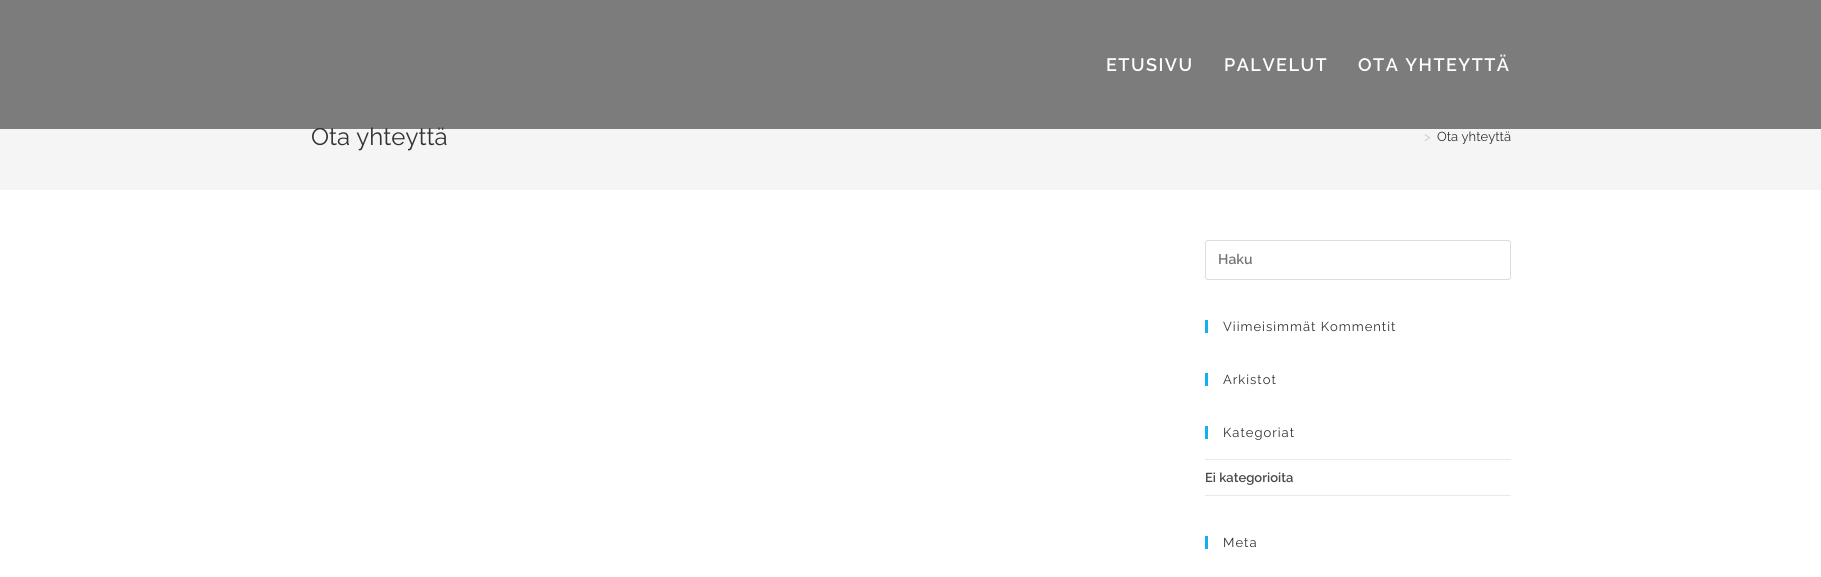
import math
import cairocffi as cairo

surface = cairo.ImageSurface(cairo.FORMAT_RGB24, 1821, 577)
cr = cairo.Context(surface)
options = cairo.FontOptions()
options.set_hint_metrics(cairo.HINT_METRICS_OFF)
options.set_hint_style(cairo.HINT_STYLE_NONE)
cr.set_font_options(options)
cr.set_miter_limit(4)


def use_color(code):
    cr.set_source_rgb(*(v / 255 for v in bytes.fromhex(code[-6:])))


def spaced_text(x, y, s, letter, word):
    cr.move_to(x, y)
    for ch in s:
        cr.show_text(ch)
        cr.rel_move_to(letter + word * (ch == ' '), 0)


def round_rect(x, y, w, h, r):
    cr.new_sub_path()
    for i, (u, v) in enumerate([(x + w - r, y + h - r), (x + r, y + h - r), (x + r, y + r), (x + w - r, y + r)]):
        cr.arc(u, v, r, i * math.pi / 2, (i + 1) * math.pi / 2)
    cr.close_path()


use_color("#ffffff")
cr.paint()
use_color("#f5f5f5")
cr.rectangle(0, 0, 1821, 190)
cr.fill()
cr.select_font_face("Raleway")
cr.set_font_size(24)
use_color("#333333")
cr.move_to(311, 145)
cr.show_text("Ota yhteyttä")
cr.set_source_rgba(0.2, 0.2, 0.2, 0.62)
cr.rectangle(0, 0, 1821, 129)
cr.fill()
cr.select_font_face("Raleway SemiBold")
cr.set_font_size(18)
use_color("#ffffff")
spaced_text(1106, 71, "ETUSIVU", 1.5, 0)
spaced_text(1224, 71, "PALVELUT", 1.5, 0)
spaced_text(1358, 71, "OTA YHTEYTTÄ", 1.5, 0)
cr.select_font_face("Raleway")
cr.set_font_size(13)
use_color("#c6c6c6")
cr.move_to(1424, 141)
cr.show_text(">")
use_color("#333333")
cr.move_to(1437, 141)
cr.show_text("Ota yhteyttä")
round_rect(1205.5, 240.5, 305, 39, 2.5)
use_color("#dddddd")
cr.set_line_width(1)
cr.stroke()
cr.select_font_face("Raleway SemiBold")
cr.set_font_size(14)
use_color("#757575")
cr.move_to(1218, 264)
cr.show_text("Haku")
use_color("#13aff0")
cr.rectangle(1205, 320, 3, 13)
cr.fill()
cr.select_font_face("Raleway")
cr.set_font_size(13)
use_color("#333333")
spaced_text(1223, 331, "Viimeisimmät Kommentit", 1, 0)
use_color("#13aff0")
cr.rectangle(1205, 373, 3, 13)
cr.fill()
use_color("#333333")
spaced_text(1223, 384, "Arkistot", 1, 0)
use_color("#13aff0")
cr.rectangle(1205, 426, 3, 13)
cr.fill()
use_color("#333333")
spaced_text(1223, 437, "Kategoriat", 1, 0)
use_color("#e9e9e9")
cr.rectangle(1205, 459, 306, 1)
cr.fill()
cr.rectangle(1205, 495, 306, 1)
cr.fill()
cr.select_font_face("Raleway SemiBold")
use_color("#4a4a4a")
cr.move_to(1205, 482)
cr.show_text("Ei kategorioita")
use_color("#13aff0")
cr.rectangle(1205, 536, 3, 13)
cr.fill()
cr.select_font_face("Raleway")
use_color("#333333")
spaced_text(1223, 547, "Meta", 1, 0)
surface.write_to_png("result.png")
